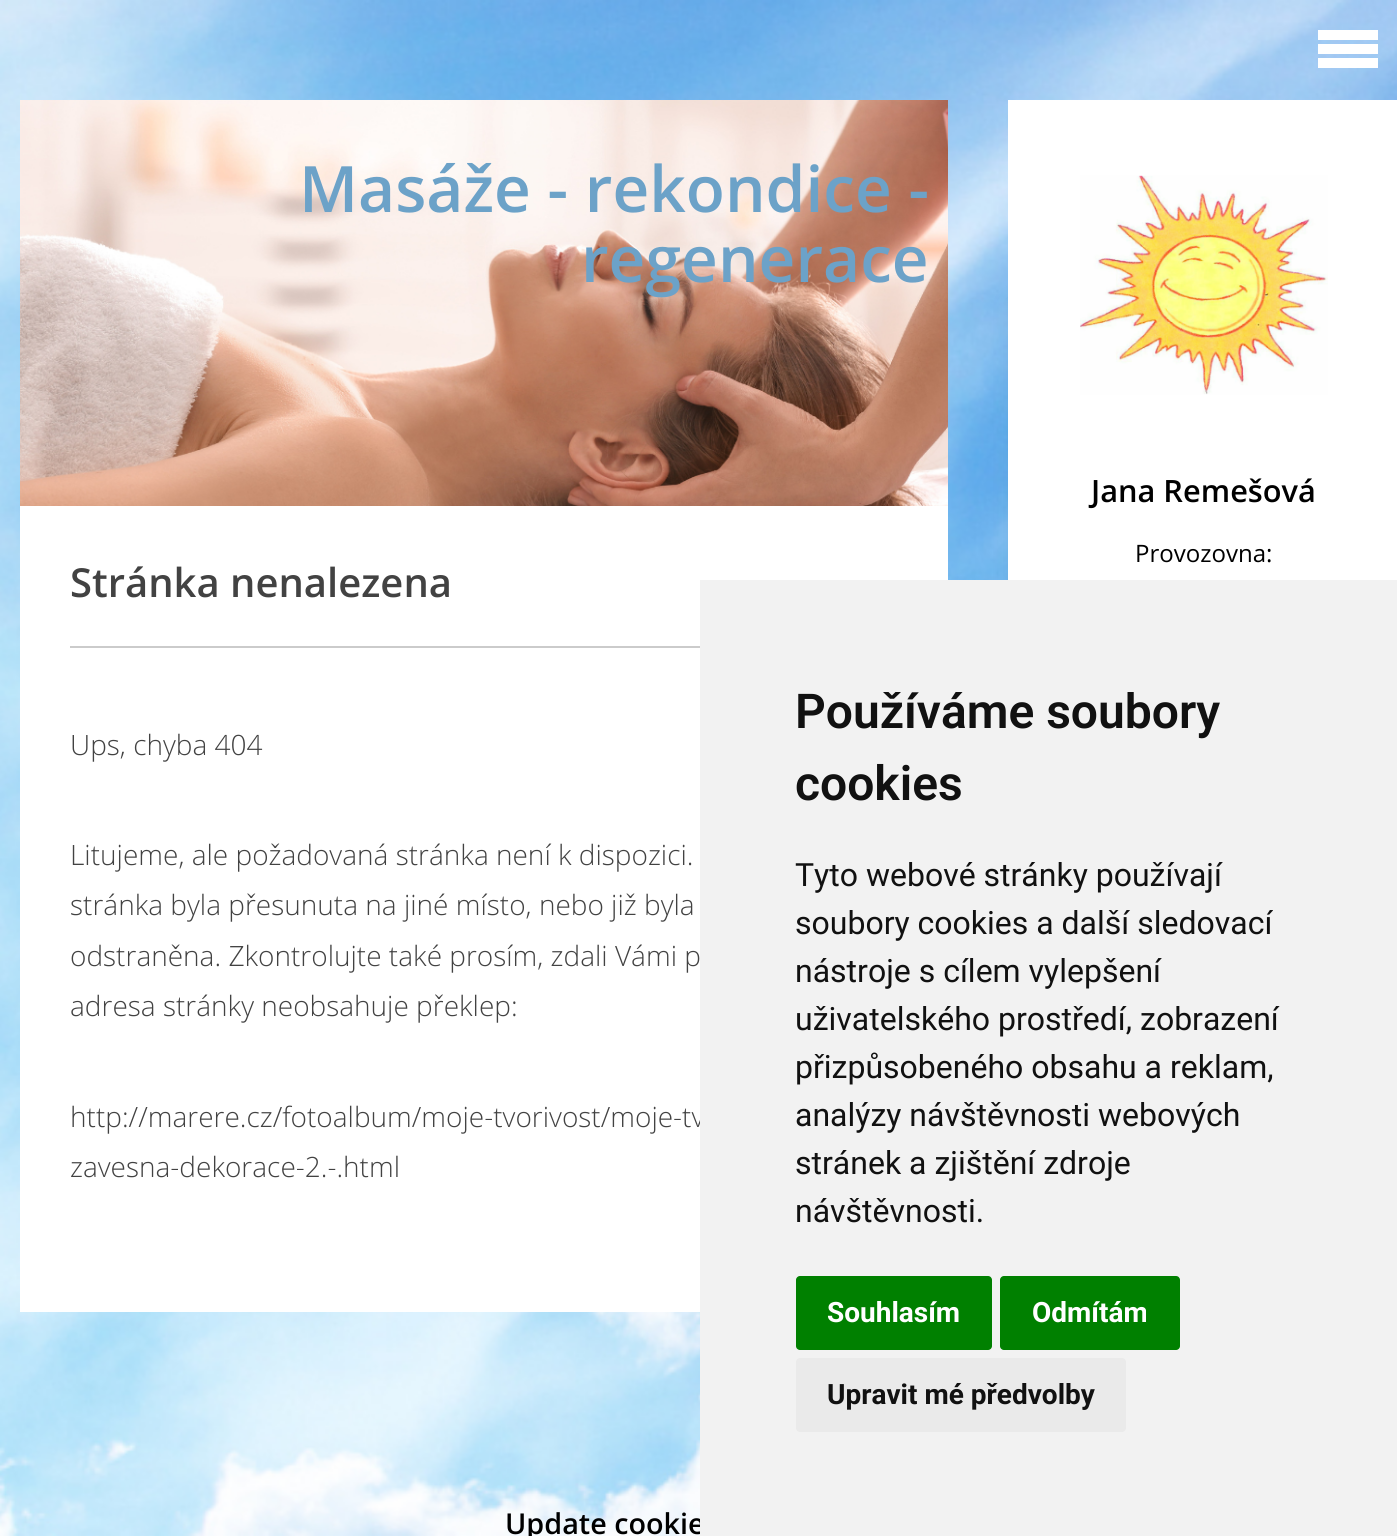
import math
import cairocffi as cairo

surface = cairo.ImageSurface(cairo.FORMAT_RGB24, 1397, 1536)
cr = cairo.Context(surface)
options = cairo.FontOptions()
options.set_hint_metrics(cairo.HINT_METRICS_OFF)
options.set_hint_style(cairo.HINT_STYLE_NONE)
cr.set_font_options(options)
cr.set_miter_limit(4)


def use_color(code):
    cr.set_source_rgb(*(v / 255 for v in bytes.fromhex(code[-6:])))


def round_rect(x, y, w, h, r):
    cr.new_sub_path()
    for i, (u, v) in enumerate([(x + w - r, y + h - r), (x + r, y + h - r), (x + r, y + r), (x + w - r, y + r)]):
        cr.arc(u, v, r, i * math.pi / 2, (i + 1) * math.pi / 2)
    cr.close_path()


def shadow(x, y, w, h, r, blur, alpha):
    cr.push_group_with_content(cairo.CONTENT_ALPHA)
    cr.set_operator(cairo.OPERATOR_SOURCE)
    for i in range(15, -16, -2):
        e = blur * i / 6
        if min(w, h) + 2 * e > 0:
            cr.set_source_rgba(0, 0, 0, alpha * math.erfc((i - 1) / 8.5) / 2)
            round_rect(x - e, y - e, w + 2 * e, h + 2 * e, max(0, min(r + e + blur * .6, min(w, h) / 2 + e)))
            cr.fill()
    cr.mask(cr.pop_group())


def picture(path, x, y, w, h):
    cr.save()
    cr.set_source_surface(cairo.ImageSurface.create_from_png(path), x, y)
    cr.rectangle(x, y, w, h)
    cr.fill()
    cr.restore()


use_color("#ffffff")
cr.paint()
picture("img1.png", 0, 0, 1397, 1536)
use_color("#ffffff")
cr.rectangle(1318, 30, 60, 10)
cr.fill()
cr.rectangle(1318, 44, 60, 10)
cr.fill()
cr.rectangle(1318, 58, 60, 10)
cr.fill()
picture("img2.png", 20, 100, 928, 406)
cr.select_font_face("Open Sans SemiBold")
cr.set_font_size(64)
use_color("#6ca2c8")
cr.move_to(299, 212)
cr.show_text("Masáže - rekondice -")
cr.move_to(581, 282)
cr.show_text("regenerace")
use_color("#ffffff")
cr.rectangle(20, 506, 928, 806)
cr.fill()
use_color("#cbcbcb")
cr.rectangle(70, 646, 630, 2)
cr.fill()
cr.set_font_size(40)
use_color("#424242")
cr.move_to(70, 597)
cr.show_text("Stránka nenalezena")
cr.select_font_face("Open Sans Light")
cr.set_font_size(28)
cr.move_to(70, 755)
cr.show_text("Ups, chyba 404")
cr.move_to(70, 865)
cr.show_text("Litujeme, ale požadovaná stránka není k dispozici.")
cr.move_to(70, 915)
cr.show_text("stránka byla přesunuta na jiné místo, nebo již byla")
cr.move_to(70, 966)
cr.show_text("odstraněna. Zkontrolujte také prosím, zdali Vámi p")
cr.move_to(70, 1016)
cr.show_text("adresa stránky neobsahuje překlep:")
cr.move_to(70, 1127)
cr.show_text("http://marere.cz/fotoalbum/moje-tvorivost/moje-tv")
cr.move_to(70, 1177)
cr.show_text("zavesna-dekorace-2.-.html")
use_color("#000000")
shadow(1008, 300, 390, 576, 0, 10, 0.05)
use_color("#ffffff")
cr.rectangle(1008, 100, 389, 480)
cr.fill()
picture("img3.png", 1080, 175, 248, 220)
cr.select_font_face("Open Sans SemiBold")
cr.set_font_size(30.75)
use_color("#000000")
cr.move_to(1091, 502)
cr.show_text("Jana Remešová")
cr.select_font_face("Open Sans")
cr.set_font_size(24)
cr.move_to(1135, 562)
cr.show_text("Provozovna:")
cr.select_font_face("Open Sans SemiBold")
cr.set_font_size(28.75)
cr.move_to(505, 1534)
cr.show_text("Update cookie")
use_color("#f2f2f2")
cr.rectangle(700, 580, 697, 956)
cr.fill()
cr.select_font_face("Roboto SemiBold")
cr.set_font_size(48)
use_color("#111111")
cr.move_to(795, 728)
cr.show_text("Používáme soubory")
cr.move_to(795, 800)
cr.show_text("cookies")
cr.select_font_face("Roboto")
cr.set_font_size(32)
cr.move_to(795, 886)
cr.show_text("Tyto webové stránky používají")
cr.move_to(795, 934)
cr.show_text("soubory cookies a další sledovací")
cr.move_to(795, 982)
cr.show_text("nástroje s cílem vylepšení")
cr.move_to(795, 1030)
cr.show_text("uživatelského prostředí, zobrazení")
cr.move_to(795, 1078)
cr.show_text("přizpůsobeného obsahu a reklam,")
cr.move_to(795, 1126)
cr.show_text("analýzy návštěvnosti webových")
cr.move_to(795, 1174)
cr.show_text("stránek a zjištění zdroje")
cr.move_to(795, 1222)
cr.show_text("návštěvnosti.")
use_color("#008000")
round_rect(796, 1276, 196, 74, 4)
cr.fill()
cr.select_font_face("Roboto", cairo.FONT_SLANT_NORMAL, cairo.FONT_WEIGHT_BOLD)
cr.set_font_size(28)
use_color("#ffffff")
cr.move_to(827, 1322)
cr.show_text("Souhlasím")
use_color("#008000")
round_rect(1000, 1276, 180, 74, 4)
cr.fill()
use_color("#ffffff")
cr.move_to(1032, 1322)
cr.show_text("Odmítám")
use_color("#eaeaea")
round_rect(796, 1358, 330, 74, 4)
cr.fill()
use_color("#111111")
cr.move_to(827, 1404)
cr.show_text("Upravit mé předvolby")
surface.write_to_png("result.png")
